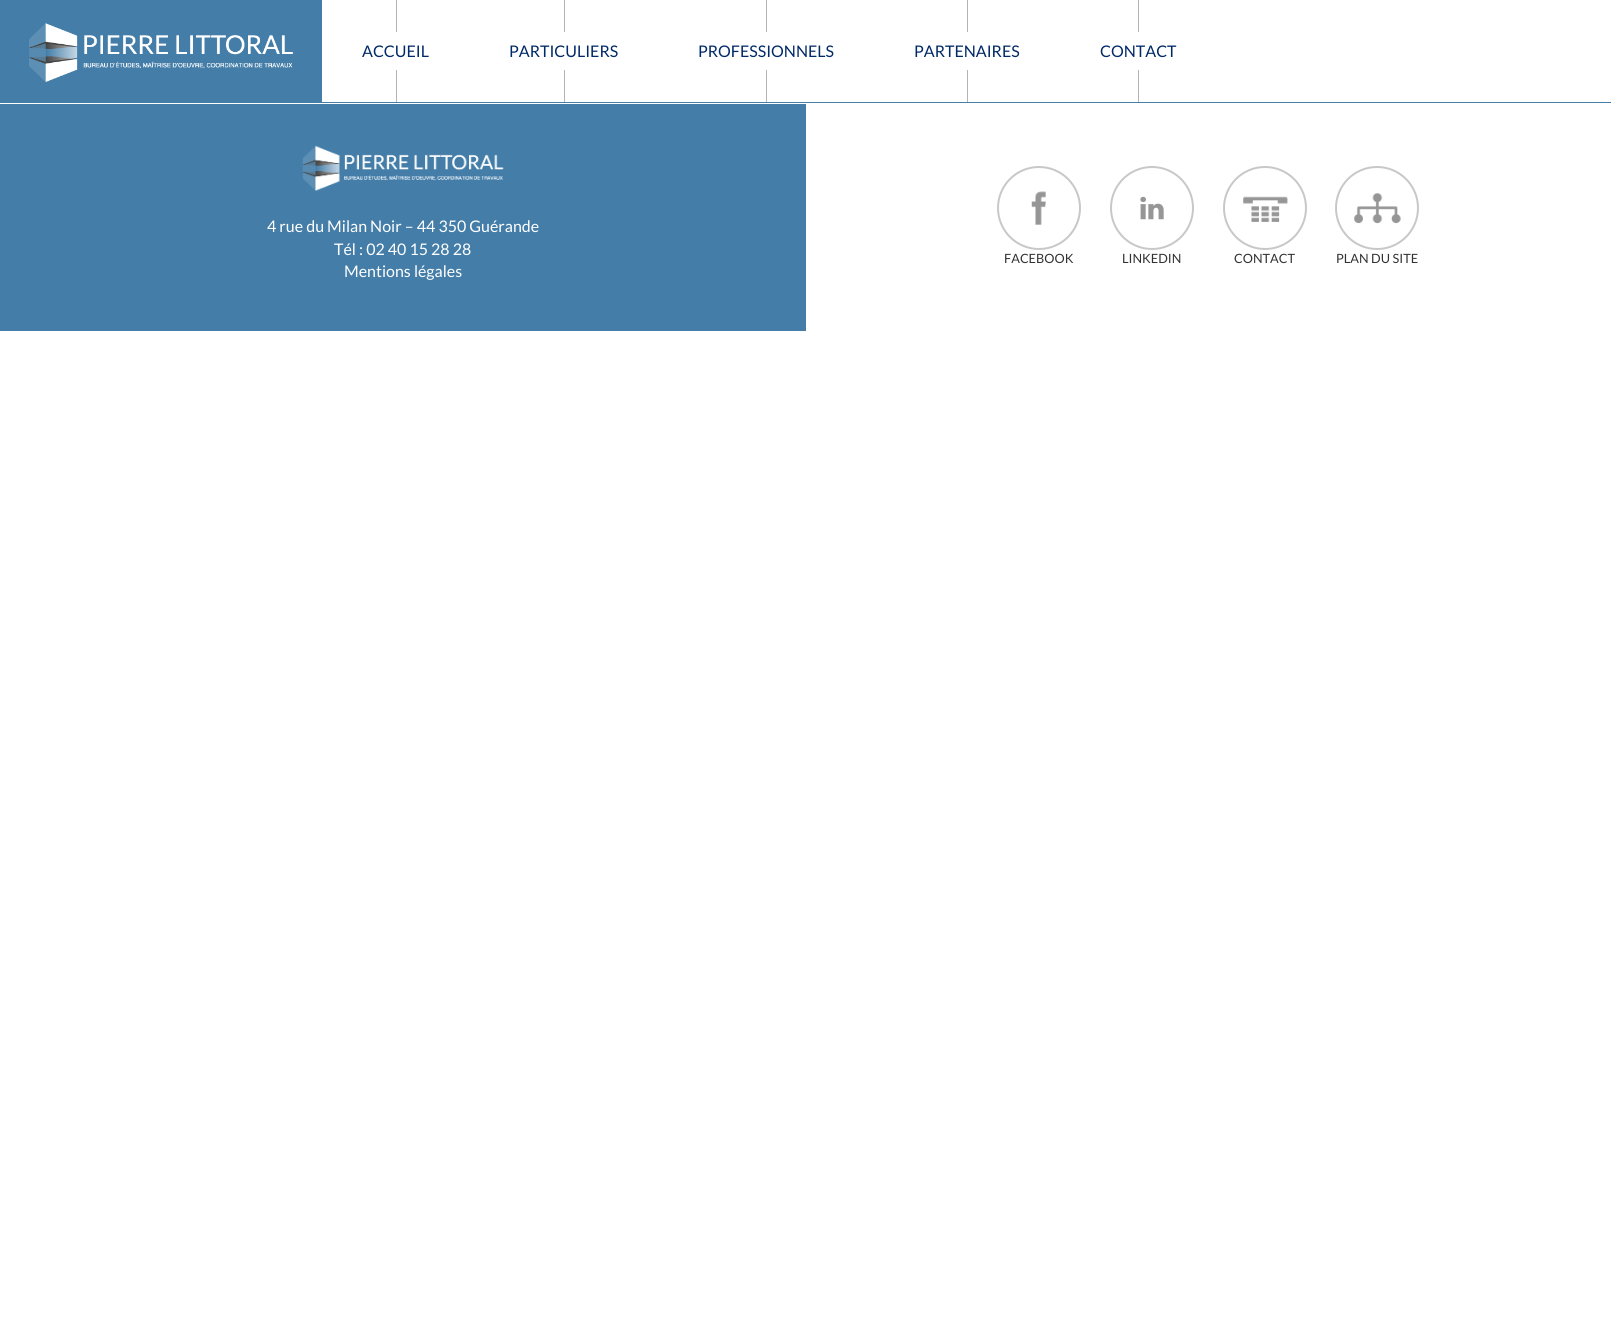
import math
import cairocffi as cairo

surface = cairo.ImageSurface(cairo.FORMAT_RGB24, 1611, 1343)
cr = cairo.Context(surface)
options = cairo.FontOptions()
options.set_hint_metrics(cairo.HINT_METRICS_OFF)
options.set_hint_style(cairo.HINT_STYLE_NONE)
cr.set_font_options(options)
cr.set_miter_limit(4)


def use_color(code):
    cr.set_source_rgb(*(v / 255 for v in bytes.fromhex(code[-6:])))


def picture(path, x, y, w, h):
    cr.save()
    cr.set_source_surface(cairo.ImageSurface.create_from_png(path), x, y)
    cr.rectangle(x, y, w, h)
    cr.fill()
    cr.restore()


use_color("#ffffff")
cr.paint()
use_color("#437da8")
cr.rectangle(0, 102, 1611, 1)
cr.fill()
cr.rectangle(0, 0, 322, 102)
cr.fill()
picture("img1.png", 29, 23, 264, 59)
use_color("#b4b4b4")
cr.rectangle(396, 0, 1, 102)
cr.fill()
use_color("#ffffff")
cr.rectangle(396, 32, 1, 38)
cr.fill()
cr.select_font_face("Lato")
cr.set_font_size(16)
use_color("#002967")
cr.move_to(362, 57)
cr.show_text("ACCUEIL")
use_color("#b4b4b4")
cr.rectangle(564, 0, 1, 102)
cr.fill()
use_color("#ffffff")
cr.rectangle(564, 32, 1, 38)
cr.fill()
use_color("#002967")
cr.move_to(509, 57)
cr.show_text("PARTICULIERS")
use_color("#b4b4b4")
cr.rectangle(766, 0, 1, 102)
cr.fill()
use_color("#ffffff")
cr.rectangle(766, 32, 1, 38)
cr.fill()
use_color("#002967")
cr.move_to(698, 57)
cr.show_text("PROFESSIONNELS")
use_color("#b4b4b4")
cr.rectangle(967, 0, 1, 102)
cr.fill()
use_color("#ffffff")
cr.rectangle(967, 32, 1, 38)
cr.fill()
use_color("#002967")
cr.move_to(914, 57)
cr.show_text("PARTENAIRES")
use_color("#b4b4b4")
cr.rectangle(1138, 0, 1, 102)
cr.fill()
use_color("#ffffff")
cr.rectangle(1138, 32, 1, 38)
cr.fill()
use_color("#002967")
cr.move_to(1100, 57)
cr.show_text("CONTACT")
use_color("#437da8")
cr.rectangle(0, 104, 806, 227)
cr.fill()
picture("img2.png", 302, 145, 202, 46)
use_color("#ffffff")
cr.move_to(267, 232)
cr.show_text("4 rue du Milan Noir – 44 350 Guérande")
cr.move_to(334, 255)
cr.show_text("Tél : 02 40 15 28 28")
cr.move_to(344, 277)
cr.show_text("Mentions légales")
picture("img3.png", 1031, 191, 15, 34)
cr.arc(1039, 208, 41, 0, 2 * math.pi)
use_color("#c8c8c8")
cr.stroke()
cr.set_font_size(12.75)
use_color("#323232")
cr.move_to(1004, 263)
cr.show_text("FACEBOOK")
picture("img4.png", 1140, 196, 24, 24)
cr.arc(1152, 208, 41, 0, 2 * math.pi)
use_color("#c8c8c8")
cr.stroke()
use_color("#323232")
cr.move_to(1122, 263)
cr.show_text("LINKEDIN")
picture("img5.png", 1243, 196, 45, 26)
cr.arc(1265, 208, 41, 0, 2 * math.pi)
use_color("#c8c8c8")
cr.stroke()
use_color("#323232")
cr.move_to(1234, 263)
cr.show_text("CONTACT")
picture("img6.png", 1353, 193, 48, 31)
cr.arc(1377, 208, 41, 0, 2 * math.pi)
use_color("#c8c8c8")
cr.stroke()
use_color("#323232")
cr.move_to(1336, 263)
cr.show_text("PLAN DU SITE")
surface.write_to_png("result.png")
